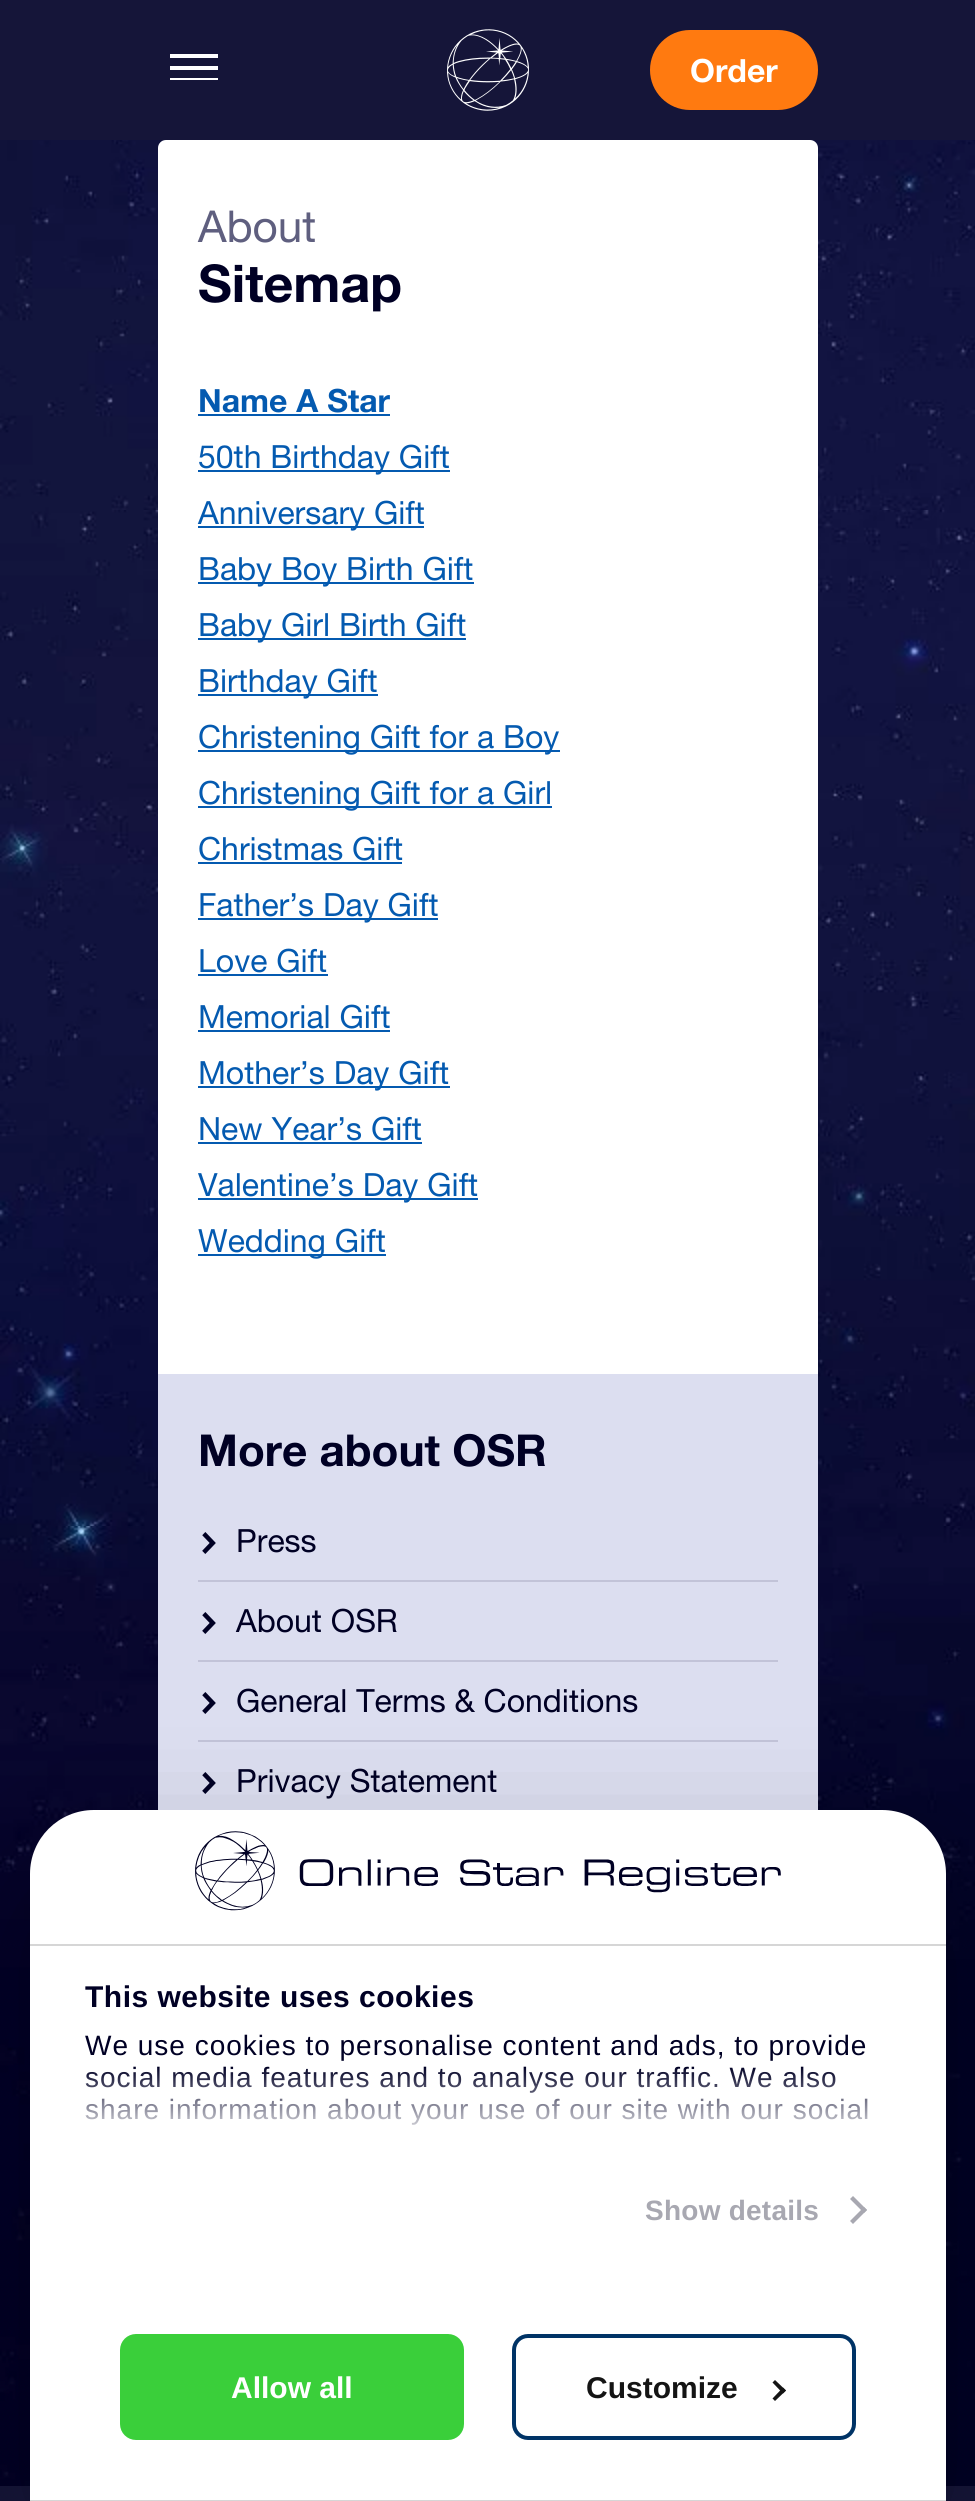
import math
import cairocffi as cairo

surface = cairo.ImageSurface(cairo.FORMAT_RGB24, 975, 2501)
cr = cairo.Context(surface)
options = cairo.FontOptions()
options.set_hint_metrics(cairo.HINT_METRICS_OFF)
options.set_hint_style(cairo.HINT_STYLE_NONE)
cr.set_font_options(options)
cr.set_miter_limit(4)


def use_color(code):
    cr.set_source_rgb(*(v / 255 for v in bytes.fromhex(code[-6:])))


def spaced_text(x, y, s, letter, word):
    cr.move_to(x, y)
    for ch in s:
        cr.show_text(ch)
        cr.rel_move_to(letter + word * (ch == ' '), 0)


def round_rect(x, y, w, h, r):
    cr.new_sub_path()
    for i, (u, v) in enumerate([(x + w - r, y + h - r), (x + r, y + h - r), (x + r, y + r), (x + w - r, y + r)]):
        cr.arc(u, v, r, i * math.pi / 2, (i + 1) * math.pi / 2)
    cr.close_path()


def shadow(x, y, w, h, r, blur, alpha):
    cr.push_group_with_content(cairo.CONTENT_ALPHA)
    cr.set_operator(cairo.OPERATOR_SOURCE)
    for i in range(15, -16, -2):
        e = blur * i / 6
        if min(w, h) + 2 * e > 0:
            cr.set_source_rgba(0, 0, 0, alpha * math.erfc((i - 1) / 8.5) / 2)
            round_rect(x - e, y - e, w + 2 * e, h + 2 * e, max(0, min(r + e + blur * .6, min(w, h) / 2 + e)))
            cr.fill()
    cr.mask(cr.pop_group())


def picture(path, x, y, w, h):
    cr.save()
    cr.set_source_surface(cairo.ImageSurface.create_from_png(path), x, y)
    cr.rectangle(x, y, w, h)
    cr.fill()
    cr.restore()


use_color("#ffffff")
cr.paint()
use_color("#151539")
cr.rectangle(0, 0, 975, 140)
cr.fill()
use_color("#ffffff")
cr.rectangle(170, 54, 48, 4)
cr.fill()
cr.rectangle(170, 66, 48, 4)
cr.fill()
cr.rectangle(170, 78, 48, 2)
cr.fill()
picture("img1.png", 447, 29, 82, 82)
use_color("#ff7a10")
round_rect(650, 30, 168, 80, 40)
cr.fill()
cr.select_font_face("Helvetica Neue", cairo.FONT_SLANT_NORMAL, cairo.FONT_WEIGHT_BOLD)
cr.set_font_size(32)
use_color("#ffffff")
cr.move_to(690, 82)
cr.show_text("Order")
picture("img2.png", 0, 140, 975, 2346)
round_rect(158, 140, 660, 2346, 8)
cr.fill()
cr.select_font_face("Helvetica Neue")
cr.set_font_size(44)
use_color("#5f5f7f")
cr.move_to(198, 242)
cr.show_text("About")
cr.select_font_face("Helvetica Neue", cairo.FONT_SLANT_NORMAL, cairo.FONT_WEIGHT_BOLD)
cr.set_font_size(52)
use_color("#000024")
cr.move_to(198, 302)
cr.show_text("Sitemap")
cr.set_font_size(32)
use_color("#045ab0")
cr.move_to(198, 412)
cr.show_text("Name A Star")
cr.rectangle(198, 414, 192, 2)
cr.fill()
cr.rectangle(198, 470, 252, 2)
cr.fill()
cr.select_font_face("Helvetica Neue")
cr.move_to(198, 468)
cr.show_text("50th Birthday Gift")
cr.rectangle(198, 526, 226, 2)
cr.fill()
cr.move_to(198, 524)
cr.show_text("Anniversary Gift")
cr.rectangle(198, 582, 276, 2)
cr.fill()
cr.move_to(198, 580)
cr.show_text("Baby Boy Birth Gift")
cr.rectangle(198, 638, 268, 2)
cr.fill()
cr.move_to(198, 636)
cr.show_text("Baby Girl Birth Gift")
cr.rectangle(198, 694, 180, 2)
cr.fill()
cr.move_to(198, 692)
cr.show_text("Birthday Gift")
cr.rectangle(198, 750, 362, 2)
cr.fill()
cr.move_to(198, 748)
cr.show_text("Christening Gift for a Boy")
cr.rectangle(198, 806, 354, 2)
cr.fill()
cr.move_to(198, 804)
cr.show_text("Christening Gift for a Girl")
cr.move_to(198, 860)
cr.show_text("Christmas Gift")
cr.rectangle(198, 862, 204, 2)
cr.fill()
cr.rectangle(198, 918, 240, 2)
cr.fill()
cr.move_to(198, 916)
cr.show_text("Father’s Day Gift")
cr.move_to(198, 972)
cr.show_text("Love Gift")
cr.rectangle(198, 974, 130, 2)
cr.fill()
cr.move_to(198, 1028)
cr.show_text("Memorial Gift")
cr.rectangle(198, 1030, 192, 2)
cr.fill()
cr.rectangle(198, 1086, 252, 2)
cr.fill()
cr.move_to(198, 1084)
cr.show_text("Mother’s Day Gift")
cr.move_to(198, 1140)
cr.show_text("New Year’s Gift")
cr.rectangle(198, 1142, 224, 2)
cr.fill()
cr.rectangle(198, 1198, 280, 2)
cr.fill()
cr.move_to(198, 1196)
cr.show_text("Valentine’s Day Gift")
cr.rectangle(198, 1254, 188, 2)
cr.fill()
cr.move_to(198, 1252)
cr.show_text("Wedding Gift")
use_color("#dcdef0")
cr.rectangle(158, 1374, 660, 436)
cr.fill()
cr.select_font_face("Helvetica Neue", cairo.FONT_SLANT_NORMAL, cairo.FONT_WEIGHT_BOLD)
cr.set_font_size(44)
use_color("#000024")
cr.move_to(198, 1466)
cr.show_text("More about OSR")
use_color("#c2c3d8")
cr.rectangle(198, 1580, 580, 2)
cr.fill()
picture("img3.png", 202, 1532, 14, 22)
cr.select_font_face("Helvetica Neue")
cr.set_font_size(32)
use_color("#000024")
cr.move_to(236, 1552)
cr.show_text("Press")
use_color("#c2c3d8")
cr.rectangle(198, 1660, 580, 2)
cr.fill()
picture("img3.png", 202, 1612, 14, 22)
use_color("#000024")
cr.move_to(236, 1632)
cr.show_text("About OSR")
use_color("#c2c3d8")
cr.rectangle(198, 1740, 580, 2)
cr.fill()
picture("img3.png", 202, 1692, 14, 22)
use_color("#000024")
cr.move_to(236, 1712)
cr.show_text("General Terms & Conditions")
picture("img3.png", 202, 1772, 14, 22)
cr.move_to(236, 1792)
cr.show_text("Privacy Statement")
use_color("#151539")
cr.rectangle(0, 2486, 975, 15)
cr.fill()
use_color("#000000")
shadow(30, 1874, 916, 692, 64, 68, 0.3)
use_color("#ffffff")
cr.new_path()
cr.move_to(94, 1810)
cr.line_to(882, 1810)
cr.curve_to(917.5, 1810, 946, 1838.5, 946, 1874)
cr.line_to(946, 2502)
cr.line_to(30, 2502)
cr.line_to(30, 1874)
cr.curve_to(30, 1838.5, 58.5, 1810, 94, 1810)
cr.close_path()
cr.fill()
use_color("#d6d6d6")
cr.rectangle(30, 1944, 916, 2)
cr.fill()
picture("img4.png", 195, 1831, 586, 80)
cr.select_font_face("Liberation Sans", cairo.FONT_SLANT_NORMAL, cairo.FONT_WEIGHT_BOLD)
cr.set_font_size(30)
use_color("#000024")
spaced_text(85, 2007, "This website uses cookies", 0.5, 0)
cr.select_font_face("Liberation Sans")
cr.set_font_size(28)
spaced_text(85, 2055, "We use cookies to personalise content and ads, to provide", 1, 0)
spaced_text(85, 2087, "social media features and to analyse our traffic. We also", 1, 0)
spaced_text(85, 2119, "share information about your use of our site with our social", 1, 0)
gradient = cairo.LinearGradient(475, 2186, 475, 2066)
gradient.add_color_stop_rgba(0, 1, 1, 1, 1)
gradient.add_color_stop_rgba(0.5, 1, 1, 1, 0.8)
gradient.add_color_stop_rgba(1, 1, 1, 1, 0)
cr.set_source(gradient)
cr.rectangle(86, 2068, 782, 57)
cr.fill()
cr.select_font_face("Liberation Sans", cairo.FONT_SLANT_NORMAL, cairo.FONT_WEIGHT_BOLD)
use_color("#a8a8b1")
spaced_text(645, 2220, "Show details", 0.25, 0)
cr.new_path()
cr.move_to(853, 2196)
cr.line_to(867, 2210)
cr.line_to(864, 2213)
cr.line_to(850, 2199)
cr.close_path()
cr.fill()
cr.new_path()
cr.move_to(864, 2207)
cr.line_to(867, 2210)
cr.line_to(853, 2224)
cr.line_to(850, 2221)
cr.close_path()
cr.fill()
use_color("#d6d6d6")
cr.rectangle(30, 2500, 916, 1)
cr.fill()
use_color("#3acf3a")
round_rect(122, 2336, 340, 102, 14)
cr.fill_preserve()
cr.set_line_width(4)
cr.stroke()
cr.set_font_size(30)
use_color("#ffffff")
cr.move_to(231, 2398)
cr.show_text("Allow all")
round_rect(514, 2336, 340, 102, 14)
use_color("#003366")
cr.stroke()
use_color("#141414")
cr.move_to(586, 2398)
cr.show_text("Customize")
cr.new_path()
cr.move_to(775, 2380)
cr.line_to(786, 2390.5)
cr.line_to(783, 2393.5)
cr.line_to(772.5, 2382.5)
cr.close_path()
cr.fill()
cr.new_path()
cr.move_to(783, 2387.5)
cr.line_to(786, 2390.5)
cr.line_to(775, 2401)
cr.line_to(772.5, 2398.5)
cr.close_path()
cr.fill()
surface.write_to_png("result.png")
